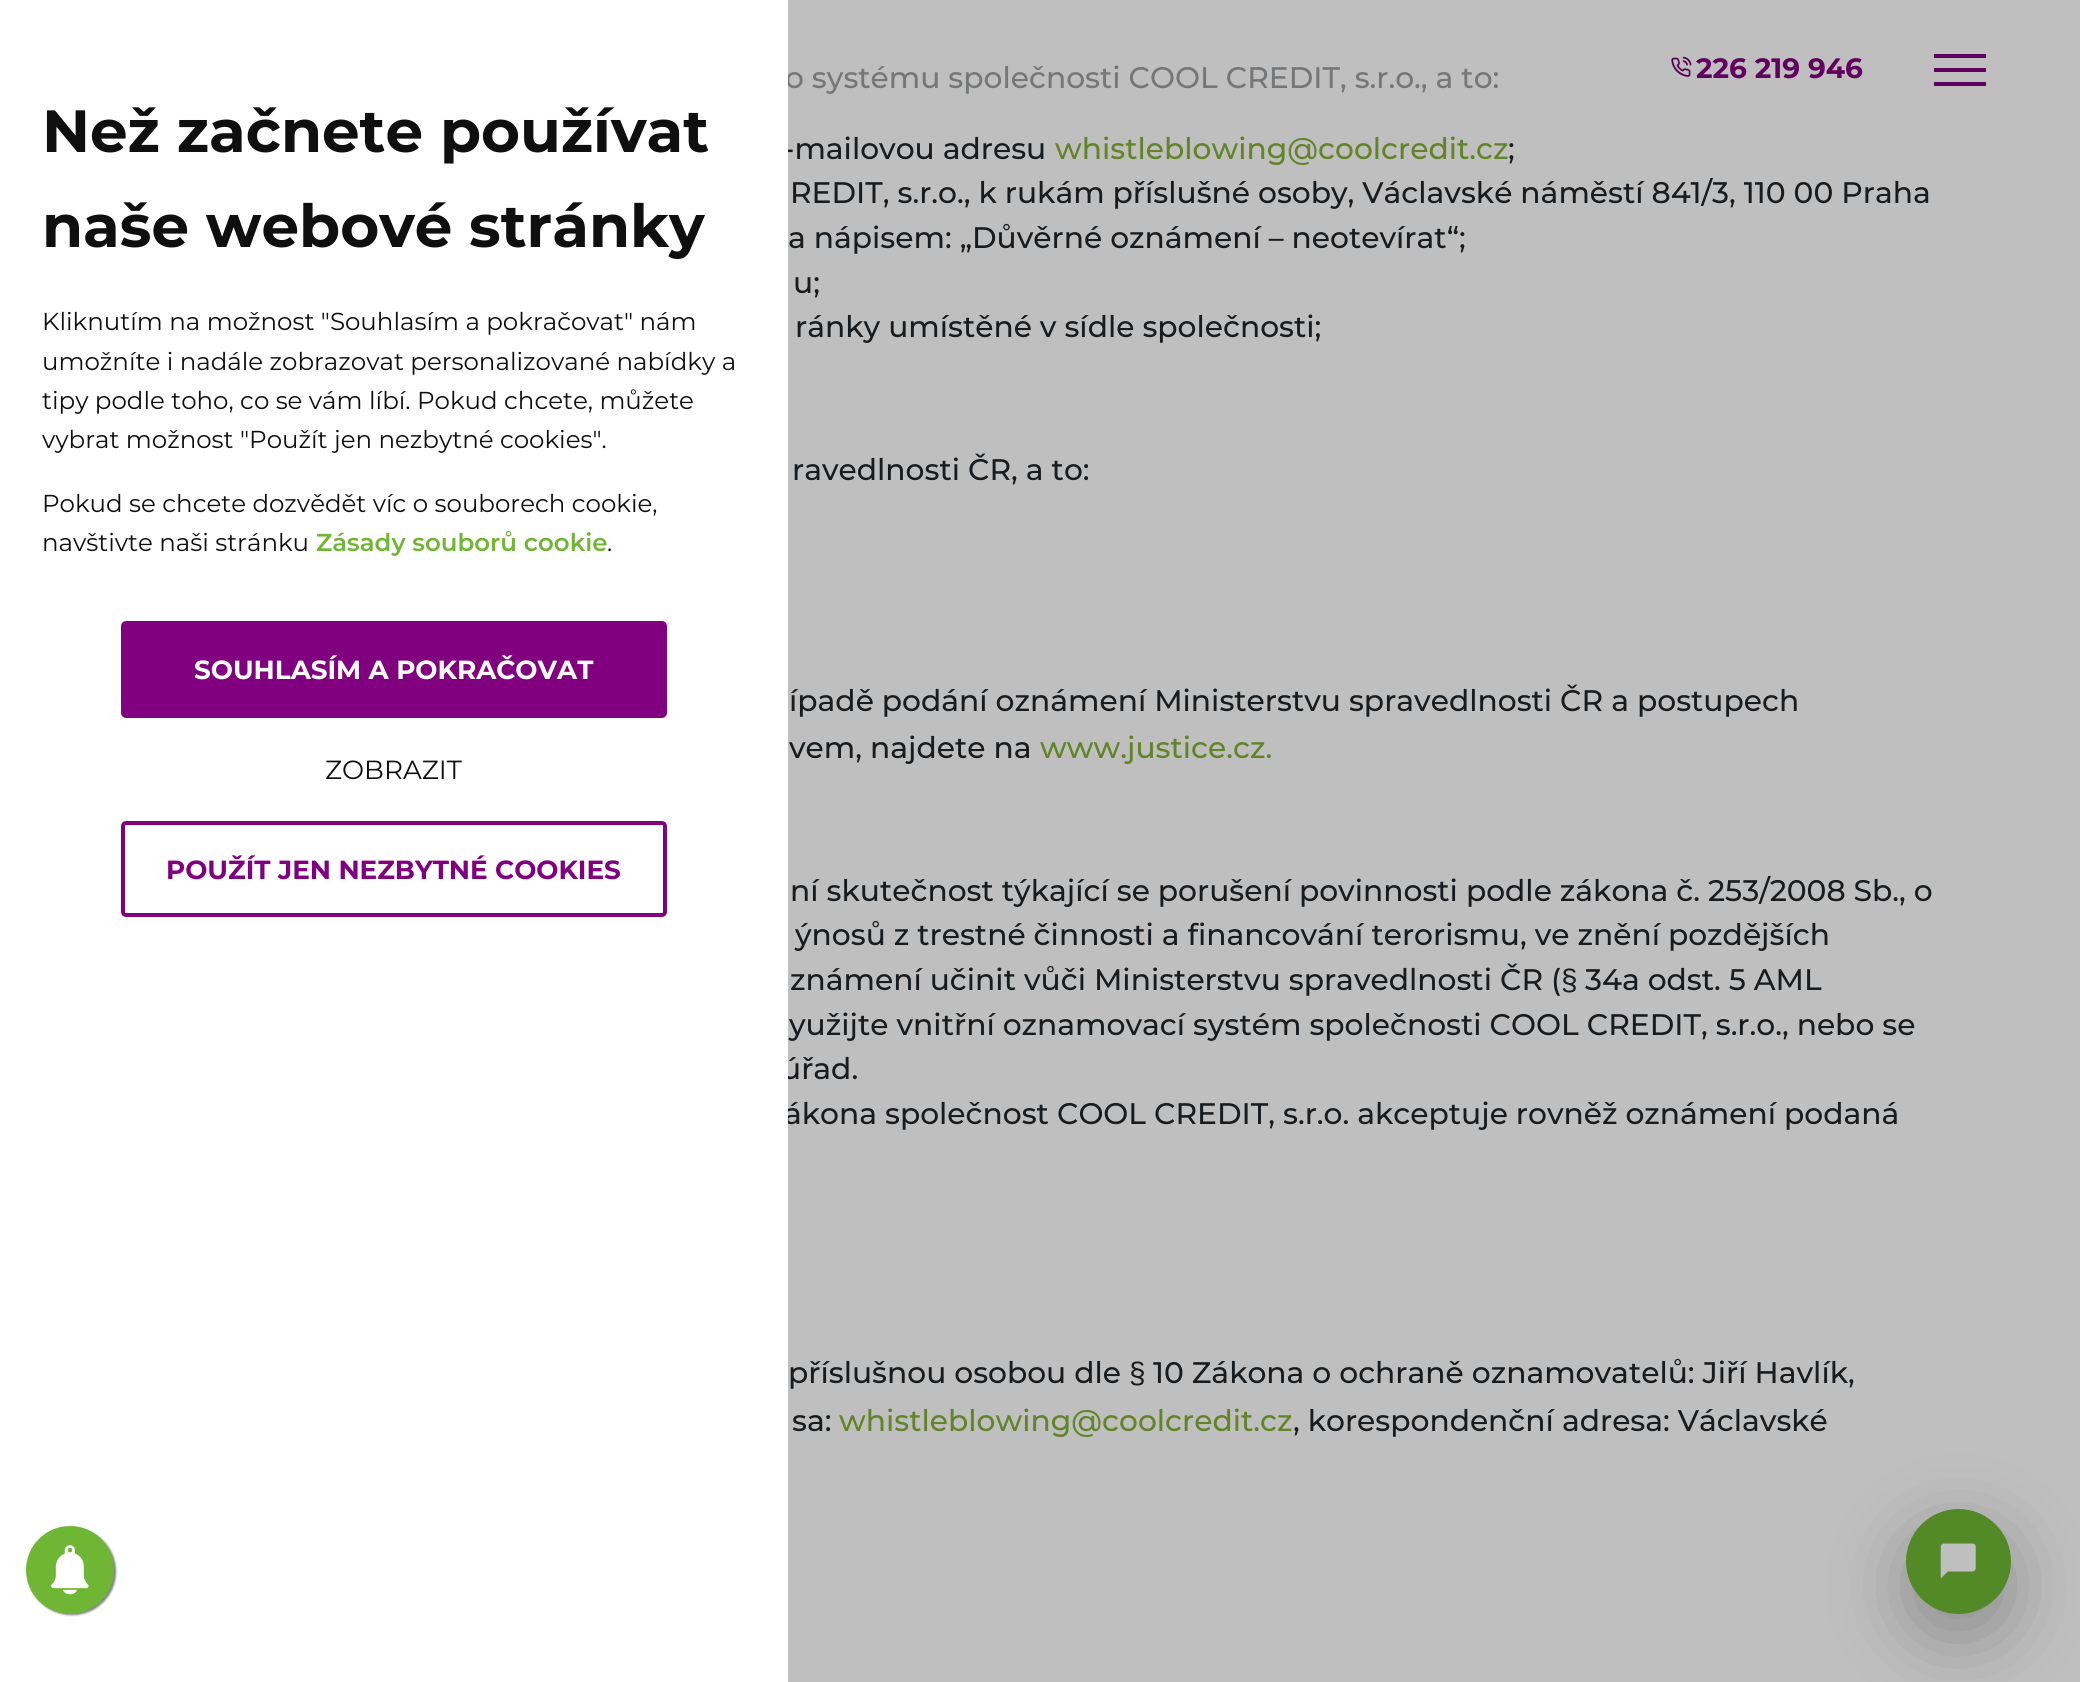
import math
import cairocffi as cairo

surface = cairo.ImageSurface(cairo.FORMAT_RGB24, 2080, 1682)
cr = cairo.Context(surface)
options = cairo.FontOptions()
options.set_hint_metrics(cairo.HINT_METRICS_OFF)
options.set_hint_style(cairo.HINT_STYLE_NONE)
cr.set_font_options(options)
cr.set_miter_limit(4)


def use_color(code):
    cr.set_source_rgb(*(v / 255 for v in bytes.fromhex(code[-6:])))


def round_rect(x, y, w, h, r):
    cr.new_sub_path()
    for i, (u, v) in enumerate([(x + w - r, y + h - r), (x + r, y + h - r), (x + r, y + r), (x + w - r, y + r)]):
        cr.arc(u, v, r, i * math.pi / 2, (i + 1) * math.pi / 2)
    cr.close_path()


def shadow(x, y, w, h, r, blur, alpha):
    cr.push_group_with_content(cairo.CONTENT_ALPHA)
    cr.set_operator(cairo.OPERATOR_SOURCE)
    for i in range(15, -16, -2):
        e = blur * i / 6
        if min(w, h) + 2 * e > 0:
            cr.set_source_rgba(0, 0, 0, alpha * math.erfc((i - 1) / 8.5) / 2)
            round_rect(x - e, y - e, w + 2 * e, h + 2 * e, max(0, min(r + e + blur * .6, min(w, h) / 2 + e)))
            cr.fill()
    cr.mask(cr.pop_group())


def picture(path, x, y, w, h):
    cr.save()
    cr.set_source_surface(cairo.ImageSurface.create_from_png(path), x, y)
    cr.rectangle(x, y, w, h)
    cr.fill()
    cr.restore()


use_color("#bfbfbf")
cr.paint()
picture("img1.png", 1671, 56, 21, 21)
cr.select_font_face("Montserrat", cairo.FONT_SLANT_NORMAL, cairo.FONT_WEIGHT_BOLD)
cr.set_font_size(28)
use_color("#61005f")
cr.move_to(1696, 78)
cr.show_text("226 219 946")
cr.rectangle(1934, 68, 52, 4)
cr.fill()
cr.rectangle(1934, 54, 52, 4)
cr.fill()
cr.rectangle(1934, 82, 52, 4)
cr.fill()
cr.select_font_face("Montserrat Medium")
cr.set_font_size(29.75)
use_color("#747677")
cr.move_to(785, 88)
cr.show_text("o systému společnosti COOL CREDIT, s.r.o., a to:")
use_color("#191c1f")
cr.move_to(783, 159)
cr.show_text("-mailovou adresu")
cr.move_to(781, 1079)
cr.show_text("úřad.")
cr.move_to(784, 1124)
cr.show_text("ákona společnost COOL CREDIT, s.r.o. akceptuje rovněž oznámení podaná")
use_color("#ffffff")
cr.rectangle(0, 0, 788, 1682)
cr.fill()
cr.select_font_face("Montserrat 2", cairo.FONT_SLANT_NORMAL, cairo.FONT_WEIGHT_BOLD)
cr.set_font_size(59.5)
use_color("#0f0f0f")
cr.move_to(42, 152)
cr.show_text("Než začnete používat")
cr.move_to(42, 247)
cr.show_text("naše webové stránky")
cr.select_font_face("Montserrat")
cr.set_font_size(24.5)
cr.move_to(42, 330)
cr.show_text("Kliknutím na možnost \"Souhlasím a pokračovat\" nám")
cr.move_to(42, 370)
cr.show_text("umožníte i nadále zobrazovat personalizované nabídky a")
cr.move_to(42, 409)
cr.show_text("tipy podle toho, co se vám líbí. Pokud chcete, můžete")
cr.move_to(42, 448)
cr.show_text("vybrat možnost \"Použít jen nezbytné cookies\".")
cr.move_to(42, 512)
cr.show_text("Pokud se chcete dozvědět víc o souborech cookie,")
cr.move_to(42, 551)
cr.show_text("navštivte naši stránku")
cr.select_font_face("Montserrat SemiBold")
use_color("#70b635")
cr.move_to(316, 551)
cr.show_text("Zásady souborů cookie")
cr.select_font_face("Montserrat")
use_color("#0f0f0f")
cr.move_to(607, 551)
cr.show_text(".")
use_color("#81007f")
round_rect(123, 623, 542, 93, 3)
cr.fill_preserve()
cr.set_line_width(4)
cr.stroke()
cr.select_font_face("Montserrat 2", cairo.FONT_SLANT_NORMAL, cairo.FONT_WEIGHT_BOLD)
cr.set_font_size(26.25)
use_color("#ffffff")
cr.move_to(194, 679)
cr.show_text("SOUHLASÍM A POKRAČOVAT")
cr.select_font_face("Montserrat")
use_color("#0f0f0f")
cr.move_to(325, 779)
cr.show_text("ZOBRAZIT")
round_rect(123, 823, 542, 92, 3)
use_color("#81007f")
cr.stroke()
cr.select_font_face("Montserrat 2", cairo.FONT_SLANT_NORMAL, cairo.FONT_WEIGHT_BOLD)
cr.move_to(166, 879)
cr.show_text("POUŽÍT JEN NEZBYTNÉ COOKIES")
cr.select_font_face("Montserrat Medium")
cr.set_font_size(29.75)
use_color("#628326")
cr.move_to(1055, 159)
cr.show_text("whistleblowing@coolcredit.cz")
use_color("#191c1f")
cr.move_to(1508, 159)
cr.show_text(";")
cr.move_to(790, 203)
cr.show_text("REDIT, s.r.o., k rukám příslušné osoby, Václavské náměstí 841/3, 110 00 Praha")
cr.move_to(788, 248)
cr.show_text("a nápisem: „Důvěrné oznámení – neotevírat“;")
cr.move_to(793, 293)
cr.show_text("u;")
cr.move_to(795, 337)
cr.show_text("ránky umístěné v sídle společnosti;")
cr.move_to(792, 480)
cr.show_text("ravedlnosti ČR, a to:")
cr.move_to(789, 711)
cr.show_text("ípadě podání oznámení Ministerstvu spravedlnosti ČR a postupech")
cr.move_to(789, 758)
cr.show_text("vem, najdete na")
use_color("#628326")
cr.move_to(1040, 758)
cr.show_text("www.justice.cz.")
use_color("#191c1f")
cr.move_to(790, 901)
cr.show_text("ní skutečnost týkající se porušení povinnosti podle zákona č. 253/2008 Sb., o")
cr.move_to(795, 945)
cr.show_text("ýnosů z trestné činnosti a financování terorismu, ve znění pozdějších")
cr.move_to(790, 990)
cr.show_text("známení učinit vůči Ministerstvu spravedlnosti ČR (")
cr.select_font_face("Liberation Sans")
cr.move_to(1561, 990)
cr.show_text("§")
cr.select_font_face("Montserrat Medium")
cr.move_to(1585, 990)
cr.show_text("34a odst. 5 AML")
cr.move_to(789, 1035)
cr.show_text("yužijte vnitřní oznamovací systém společnosti COOL CREDIT, s.r.o., nebo se")
cr.move_to(788, 1383)
cr.show_text("příslušnou osobou dle")
cr.select_font_face("Liberation Sans")
cr.move_to(1129, 1383)
cr.show_text("§")
cr.select_font_face("Montserrat Medium")
cr.move_to(1153, 1383)
cr.show_text("10 Zákona o ochraně oznamovatelů: Jiří Havlík,")
cr.move_to(792, 1431)
cr.show_text("sa:")
use_color("#628326")
cr.move_to(839, 1431)
cr.show_text("whistleblowing@coolcredit.cz")
use_color("#191c1f")
cr.move_to(1293, 1431)
cr.show_text(", korespondenční adresa: Václavské")
use_color("#000000")
shadow(1906, 1533, 105, 105, 52.5, 37, 0.25)
use_color("#548928")
cr.arc(1958.5, 1561.5, 52.5, 0, 2 * math.pi)
cr.fill()
picture("img2.png", 1940, 1543, 36, 36)
use_color("#000000")
shadow(28, 1528, 88, 87, 43.5, 1, 0.5)
use_color("#70b635")
cr.arc(70, 1570, 44, 0, 2 * math.pi)
cr.fill()
picture("img3.png", 51, 1545, 38, 50)
surface.write_to_png("result.png")
